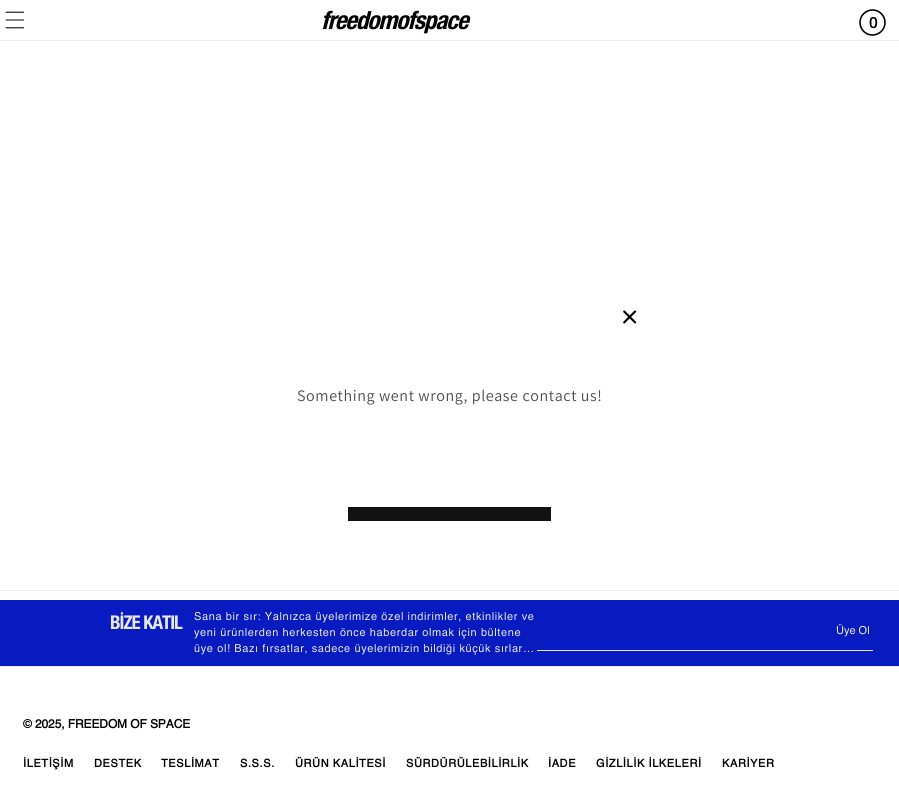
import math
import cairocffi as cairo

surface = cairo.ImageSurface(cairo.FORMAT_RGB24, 899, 793)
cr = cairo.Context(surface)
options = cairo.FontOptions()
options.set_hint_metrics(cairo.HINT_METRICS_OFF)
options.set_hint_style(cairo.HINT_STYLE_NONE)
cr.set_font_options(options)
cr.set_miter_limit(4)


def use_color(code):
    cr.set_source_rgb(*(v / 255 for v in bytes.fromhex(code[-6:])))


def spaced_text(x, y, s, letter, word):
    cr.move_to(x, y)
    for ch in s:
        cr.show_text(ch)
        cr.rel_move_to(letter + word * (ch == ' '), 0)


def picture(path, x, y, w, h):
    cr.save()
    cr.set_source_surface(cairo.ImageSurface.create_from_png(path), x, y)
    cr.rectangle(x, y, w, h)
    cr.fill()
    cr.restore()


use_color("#ffffff")
cr.paint()
use_color("#ececec")
cr.rectangle(0, 40, 899, 1)
cr.fill()
picture("img1.png", 5, 11, 20, 18)
cr.select_font_face("Helvetica Neue", cairo.FONT_SLANT_ITALIC, cairo.FONT_WEIGHT_BOLD)
cr.set_font_size(25)
use_color("#000000")
spaced_text(321, 29, "freedomofspace", -1, 0)
cr.new_path()
cr.arc(872.5, 22.5, 12.5, 0, 2 * math.pi)
cr.set_line_width(1.6)
cr.stroke()
cr.select_font_face("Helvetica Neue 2", cairo.FONT_SLANT_NORMAL, cairo.FONT_WEIGHT_BOLD)
cr.set_font_size(15)
spaced_text(869, 28, "0", 0.6, 0)
cr.rectangle(348.5, 474.5, 202, 46)
use_color("#121212")
cr.set_line_width(1)
cr.stroke()
use_color("#ffffff")
cr.rectangle(348, 474, 203, 33)
cr.fill()
picture("img2.png", 623, 310, 14, 14)
cr.select_font_face("Assistant")
cr.set_font_size(16)
use_color("#4d4d4d")
spaced_text(297, 401, "Something went wrong, please contact us!", 0.6, 0)
use_color("#121212")
cr.rectangle(349, 507, 201, 13)
cr.fill()
use_color("#ececec")
cr.rectangle(0, 590, 899, 1)
cr.fill()
use_color("#081bc0")
cr.rectangle(0, 600, 899, 66)
cr.fill()
cr.select_font_face("Helvetica Neue", cairo.FONT_SLANT_NORMAL, cairo.FONT_WEIGHT_BOLD)
cr.set_font_size(19)
use_color("#e6e6e6")
spaced_text(110, 629, "BİZE KATIL", -1, 0)
cr.select_font_face("Helvetica")
cr.set_font_size(11)
spaced_text(194, 620, "Sana bir sır: Yalnızca üyelerimize özel indirimler, etkinlikler ve", 0.6, 0)
spaced_text(194, 636, "yeni ürünlerden herkesten önce haberdar olmak için bültene", 0.6, 0)
spaced_text(194, 652, "üye ol! Bazı fırsatlar, sadece üyelerimizin bildiği küçük sırlar…", 0.6, 0)
cr.move_to(836, 634)
cr.show_text("Üye Ol")
cr.rectangle(537, 650, 336, 1)
cr.fill()
use_color("#ececec")
cr.rectangle(0, 666, 899, 1)
cr.fill()
cr.select_font_face("Helvetica", cairo.FONT_SLANT_NORMAL, cairo.FONT_WEIGHT_BOLD)
cr.set_font_size(12)
use_color("#000000")
spaced_text(23, 728, "© 2025, FREEDOM OF SPACE", -0.1, 0)
cr.set_font_size(11)
spaced_text(23, 767, "İLETİŞİM", 0.6, 0)
spaced_text(94, 767, "DESTEK", 0.6, 0)
spaced_text(161, 767, "TESLİMAT", 0.6, 0)
spaced_text(240, 767, "S.S.S.", 0.6, 0)
spaced_text(295, 767, "ÜRÜN KALİTESİ", 0.6, 0)
spaced_text(406, 767, "SÜRDÜRÜLEBİLİRLİK", 0.6, 0)
spaced_text(548, 767, "İADE", 0.6, 0)
spaced_text(596, 767, "GİZLİLİK İLKELERİ", 0.6, 0)
spaced_text(722, 767, "KARİYER", 0.6, 0)
surface.write_to_png("result.png")
